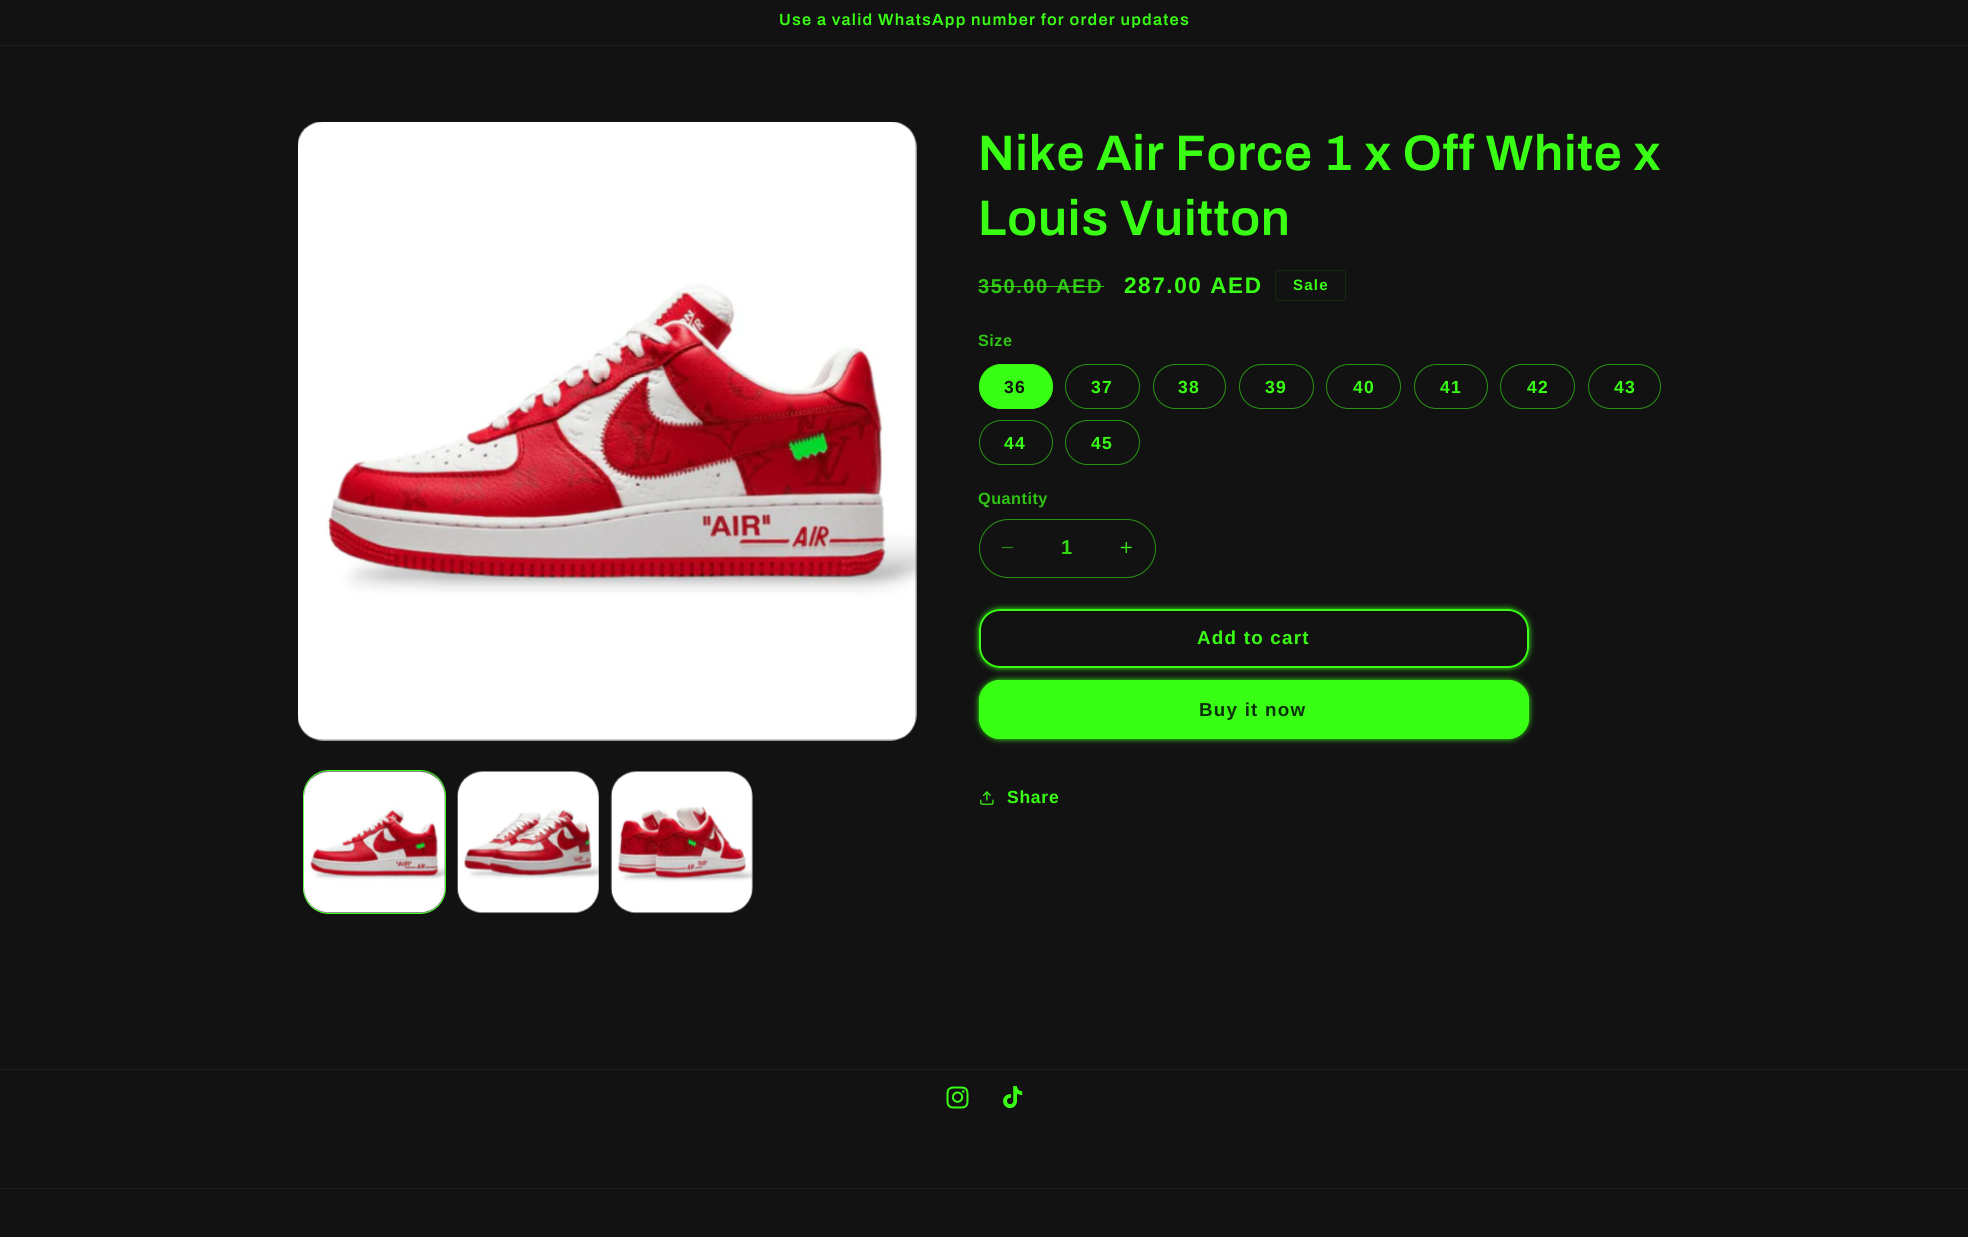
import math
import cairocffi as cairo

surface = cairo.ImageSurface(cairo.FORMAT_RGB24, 1968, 1237)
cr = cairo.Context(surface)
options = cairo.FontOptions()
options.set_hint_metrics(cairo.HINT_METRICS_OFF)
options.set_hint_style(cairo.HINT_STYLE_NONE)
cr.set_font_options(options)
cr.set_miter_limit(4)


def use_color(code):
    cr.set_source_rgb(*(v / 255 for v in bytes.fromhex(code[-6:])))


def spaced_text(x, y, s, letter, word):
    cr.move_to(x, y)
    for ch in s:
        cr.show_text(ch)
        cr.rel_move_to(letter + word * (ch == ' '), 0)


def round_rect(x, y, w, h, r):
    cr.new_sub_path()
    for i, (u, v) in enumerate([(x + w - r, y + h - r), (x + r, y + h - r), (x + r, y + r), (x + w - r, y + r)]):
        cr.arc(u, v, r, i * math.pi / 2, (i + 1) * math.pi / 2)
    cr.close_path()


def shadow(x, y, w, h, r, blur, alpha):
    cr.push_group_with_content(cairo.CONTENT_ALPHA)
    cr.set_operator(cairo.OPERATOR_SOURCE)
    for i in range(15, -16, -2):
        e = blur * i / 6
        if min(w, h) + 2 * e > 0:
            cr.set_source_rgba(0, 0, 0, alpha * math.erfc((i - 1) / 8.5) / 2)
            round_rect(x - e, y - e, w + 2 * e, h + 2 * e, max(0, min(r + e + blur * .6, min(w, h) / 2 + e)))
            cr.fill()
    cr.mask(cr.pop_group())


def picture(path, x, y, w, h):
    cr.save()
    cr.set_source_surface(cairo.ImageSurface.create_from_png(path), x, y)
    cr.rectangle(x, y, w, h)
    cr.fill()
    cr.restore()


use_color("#121212")
cr.paint()
use_color("#152512")
cr.rectangle(0, 45, 1968, 1)
cr.fill()
cr.select_font_face("Archivo SemiBold")
cr.set_font_size(16.25)
use_color("#39ff14")
spaced_text(779, 25, "Use a valid WhatsApp number for order updates", 1.25, 0)
picture("img1.png", 298, 122, 619, 619)
round_rect(303.5, 770.5, 142, 143, 25.5)
cr.set_line_width(1)
cr.stroke()
picture("img2.png", 303, 771, 143, 143)
picture("img3.png", 457, 771, 142, 143)
picture("img4.png", 610, 771, 143, 143)
cr.set_font_size(50)
spaced_text(978, 170, "Nike Air Force 1 x Off White x", 0.75, 0)
spaced_text(978, 235, "Louis Vuitton", 0.75, 0)
cr.select_font_face("Arimo", cairo.FONT_SLANT_NORMAL, cairo.FONT_WEIGHT_BOLD)
cr.set_font_size(20)
use_color("#2fc414")
spaced_text(978, 293, "350.00 AED", 1.6, 0)
cr.set_source_rgba(0.224, 1, 0.078, 0.75)
cr.rectangle(979, 286, 125, 1)
cr.fill()
cr.set_font_size(22.5)
use_color("#39ff14")
spaced_text(1124, 293, "287.00 AED", 1.6, 0)
round_rect(1275.5, 270.5, 70, 30, 2)
use_color("#162a12")
cr.stroke()
cr.set_font_size(15)
use_color("#39ff14")
spaced_text(1293, 290, "Sale", 1.25, 0)
cr.set_font_size(16.25)
use_color("#2fc414")
spaced_text(978, 346, "Size", 0.5, 0)
use_color("#39ff14")
round_rect(979, 364, 74, 45, 22.5)
cr.fill()
round_rect(979.5, 364.5, 73, 44, 22)
cr.set_source_rgba(0.224, 1, 0.078, 0.55)
cr.stroke()
cr.set_font_size(17.5)
use_color("#121212")
spaced_text(1004, 393, "36", 1.25, 0)
round_rect(1065.5, 364.5, 74, 44, 22)
use_color("#279413")
cr.stroke()
use_color("#39ff14")
spaced_text(1091, 393, "37", 1.25, 0)
round_rect(1153.5, 364.5, 72, 44, 22)
use_color("#279413")
cr.stroke()
use_color("#39ff14")
spaced_text(1178, 393, "38", 1.25, 0)
round_rect(1239.5, 364.5, 74, 44, 22)
use_color("#279413")
cr.stroke()
use_color("#39ff14")
spaced_text(1265, 393, "39", 1.25, 0)
round_rect(1326.5, 364.5, 74, 44, 22)
use_color("#279413")
cr.stroke()
use_color("#39ff14")
spaced_text(1353, 393, "40", 1.25, 0)
round_rect(1414.5, 364.5, 73, 44, 22)
use_color("#279413")
cr.stroke()
use_color("#39ff14")
spaced_text(1440, 393, "41", 1.25, 0)
round_rect(1500.5, 364.5, 74, 44, 22)
use_color("#279413")
cr.stroke()
use_color("#39ff14")
spaced_text(1527, 393, "42", 1.25, 0)
round_rect(1588.5, 364.5, 72, 44, 22)
use_color("#279413")
cr.stroke()
use_color("#39ff14")
spaced_text(1614, 393, "43", 1.25, 0)
round_rect(979.5, 420.5, 73, 44, 22)
use_color("#279413")
cr.stroke()
use_color("#39ff14")
spaced_text(1004, 449, "44", 1.25, 0)
round_rect(1065.5, 420.5, 74, 44, 22)
use_color("#279413")
cr.stroke()
use_color("#39ff14")
spaced_text(1091, 449, "45", 1.25, 0)
cr.set_font_size(16.25)
use_color("#2fc414")
spaced_text(978, 504, "Quantity", 0.5, 0)
picture("img5.png", 1002, 546, 11, 3)
picture("img6.png", 1120, 541, 12, 13)
round_rect(979.5, 519.5, 176, 58, 29)
use_color("#279413")
cr.stroke()
cr.set_font_size(20)
use_color("#33db14")
cr.move_to(1061, 554)
cr.show_text("1")
use_color("#39ff14")
shadow(979, 609, 550, 59, 21, 3, 1)
use_color("#121212")
round_rect(979, 609, 550, 59, 21)
cr.fill()
round_rect(979.5, 609.5, 549, 58, 20.5)
cr.stroke()
round_rect(980, 610, 548, 57, 20)
use_color("#39ff14")
cr.set_line_width(2)
cr.stroke()
cr.set_font_size(18.75)
spaced_text(1197, 644, "Add to cart", 1.25, 0)
use_color("#39ff14")
shadow(979, 680, 550, 59, 21, 3, 1)
use_color("#39ff14")
round_rect(979, 680, 550, 59, 21)
cr.fill()
round_rect(979.5, 680.5, 549, 58, 20.5)
cr.set_line_width(1)
cr.stroke()
use_color("#0a310a")
spaced_text(1199, 716, "Buy it now", 1.25, 0)
picture("img7.png", 980, 791, 14, 14)
cr.set_font_size(17.5)
use_color("#39ff14")
spaced_text(1007, 803, "Share", 0.75, 0)
use_color("#152512")
cr.rectangle(0, 1069, 1968, 1)
cr.fill()
picture("img8.png", 946, 1086, 23, 23)
picture("img9.png", 1003, 1086, 20, 23)
cr.rectangle(0, 1188, 1968, 1)
cr.fill()
surface.write_to_png("result.png")
